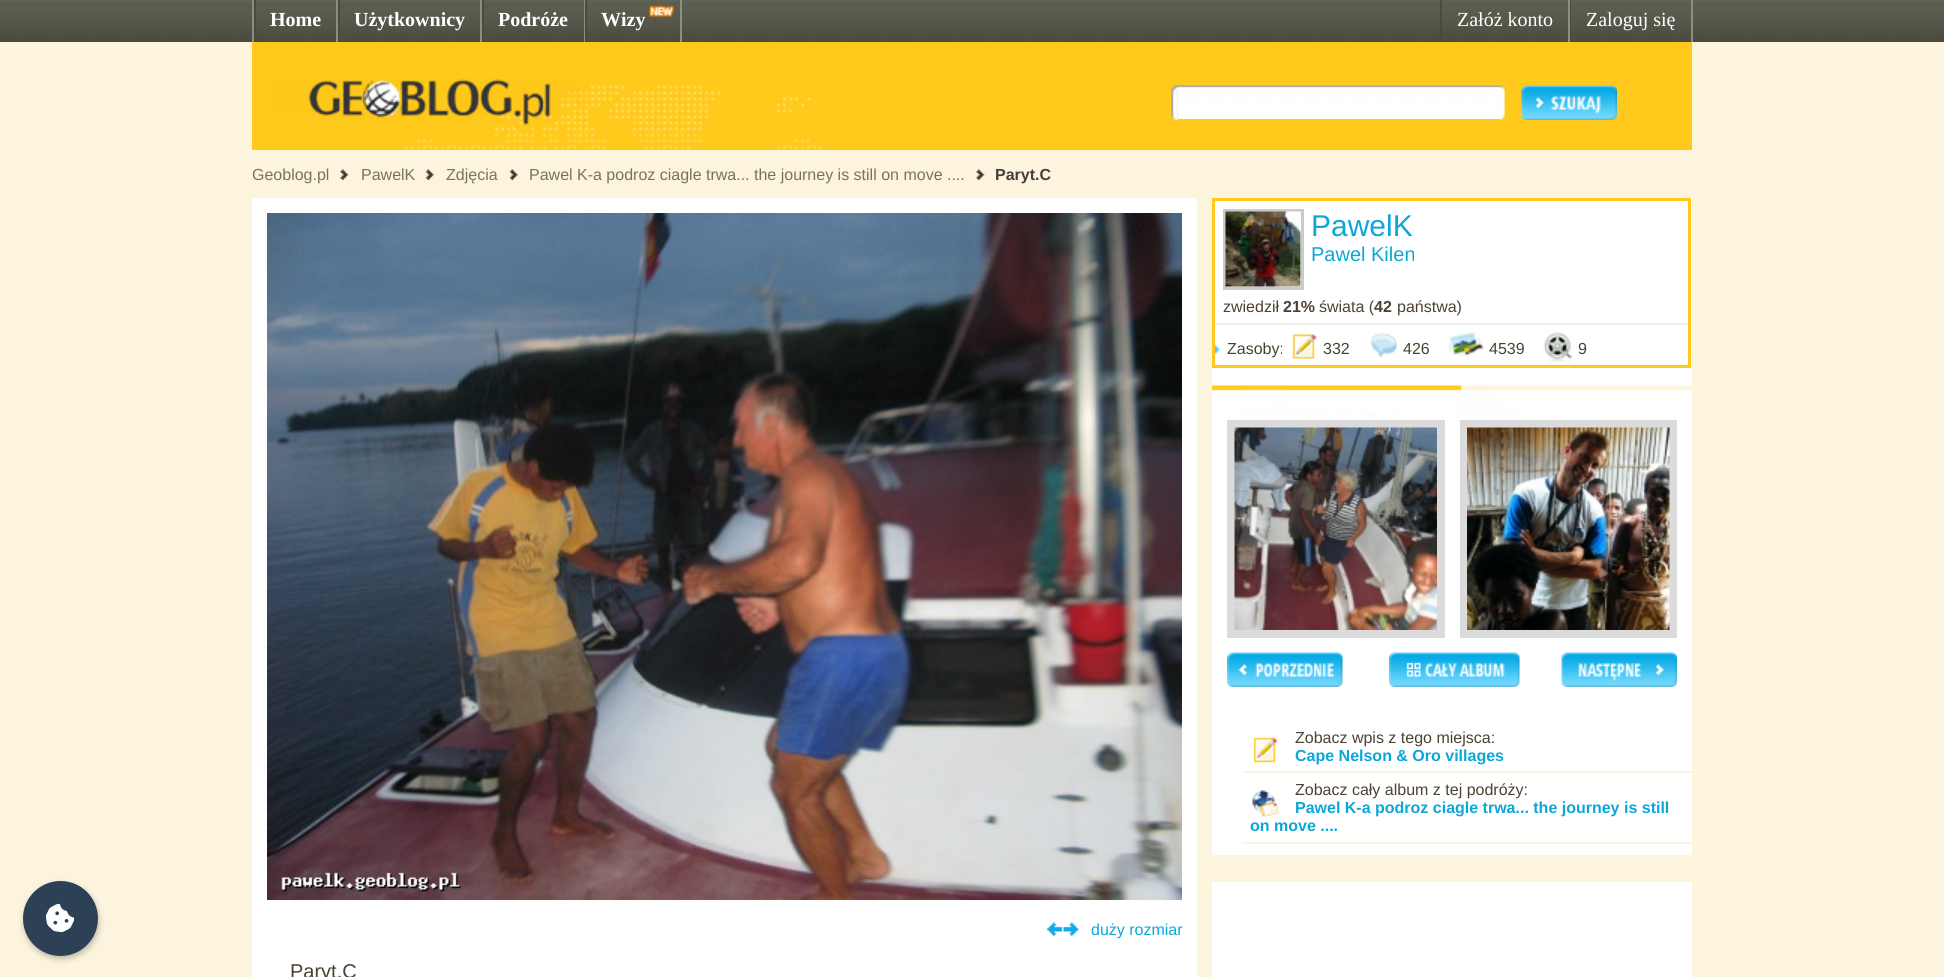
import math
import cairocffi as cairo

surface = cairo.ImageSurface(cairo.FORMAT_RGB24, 1944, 977)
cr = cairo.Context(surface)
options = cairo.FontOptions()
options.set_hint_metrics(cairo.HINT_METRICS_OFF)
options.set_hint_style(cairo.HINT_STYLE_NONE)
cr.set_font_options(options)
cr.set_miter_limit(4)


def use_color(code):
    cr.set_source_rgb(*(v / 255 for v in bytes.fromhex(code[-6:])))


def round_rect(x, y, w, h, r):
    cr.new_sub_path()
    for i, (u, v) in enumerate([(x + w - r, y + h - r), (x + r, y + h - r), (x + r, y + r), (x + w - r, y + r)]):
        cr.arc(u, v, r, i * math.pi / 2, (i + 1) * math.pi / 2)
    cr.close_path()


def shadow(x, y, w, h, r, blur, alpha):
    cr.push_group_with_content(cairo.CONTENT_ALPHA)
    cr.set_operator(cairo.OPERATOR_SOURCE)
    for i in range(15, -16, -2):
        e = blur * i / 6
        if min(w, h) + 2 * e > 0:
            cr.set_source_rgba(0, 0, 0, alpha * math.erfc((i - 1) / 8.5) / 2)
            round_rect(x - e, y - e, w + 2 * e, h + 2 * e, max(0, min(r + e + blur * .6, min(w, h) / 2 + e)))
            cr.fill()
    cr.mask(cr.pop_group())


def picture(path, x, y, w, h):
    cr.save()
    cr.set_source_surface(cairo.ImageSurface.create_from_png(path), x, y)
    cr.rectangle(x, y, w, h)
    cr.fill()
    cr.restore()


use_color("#fcf4dd")
cr.paint()
picture("img1.png", 0, 0, 1944, 42)
use_color("#000000")
shadow(24, 884, 75, 75, 37.5, 3, 0.25)
use_color("#2d4156")
cr.arc(60.5, 918.5, 37.5, 0, 2 * math.pi)
cr.fill()
picture("img2.png", 45, 903, 30, 30)
use_color("#8c8d83")
cr.rectangle(252, 0, 2, 42)
cr.fill()
cr.rectangle(336, 0, 2, 42)
cr.fill()
use_color("#494a41")
cr.rectangle(254, 0, 2, 42)
cr.fill()
cr.select_font_face("Liberation Serif", cairo.FONT_SLANT_NORMAL, cairo.FONT_WEIGHT_BOLD)
cr.set_font_size(20)
use_color("#ffffff")
cr.move_to(270, 26)
cr.show_text("Home")
use_color("#8c8d83")
cr.rectangle(480, 0, 2, 42)
cr.fill()
use_color("#494a41")
cr.rectangle(338, 0, 2, 42)
cr.fill()
use_color("#ffffff")
cr.move_to(354, 26)
cr.show_text("Użytkownicy")
use_color("#8c8d83")
cr.rectangle(584, 0, 1, 42)
cr.fill()
use_color("#494a41")
cr.rectangle(482, 0, 2, 42)
cr.fill()
use_color("#ffffff")
cr.move_to(498, 26)
cr.show_text("Podróże")
use_color("#8c8d83")
cr.rectangle(680, 0, 2, 42)
cr.fill()
use_color("#494a41")
cr.rectangle(585, 0, 2, 42)
cr.fill()
use_color("#ffffff")
cr.move_to(601, 26)
cr.show_text("Wizy")
picture("img3.png", 649, 5, 25, 12)
use_color("#8c8d83")
cr.rectangle(1568, 0, 2, 42)
cr.fill()
use_color("#494a41")
cr.rectangle(1440, 0, 2, 42)
cr.fill()
cr.select_font_face("Liberation Serif")
use_color("#ffffff")
cr.move_to(1457, 26)
cr.show_text("Załóż konto")
use_color("#8c8d83")
cr.rectangle(1691, 0, 2, 42)
cr.fill()
use_color("#494a41")
cr.rectangle(1570, 0, 1, 42)
cr.fill()
use_color("#ffffff")
cr.move_to(1586, 26)
cr.show_text("Zaloguj się")
use_color("#ffca1c")
cr.rectangle(252, 42, 1440, 108)
cr.fill()
picture("img4.png", 252, 78, 570, 72)
picture("img5.png", 1171, 84, 7, 38)
use_color("#ffffff")
cr.rectangle(1178, 118, 322, 1)
cr.fill()
picture("img6.png", 1177, 84, 323, 35)
picture("img7.png", 1500, 84, 6, 38)
picture("img8.png", 1521, 85, 96, 35)
cr.select_font_face("Liberation Sans")
cr.set_font_size(16)
use_color("#76765c")
cr.move_to(252, 180)
cr.show_text("Geoblog.pl")
picture("img9.png", 340, 169, 9, 11)
cr.move_to(361, 180)
cr.show_text("PawelK")
picture("img10.png", 425, 169, 9, 11)
cr.move_to(446, 180)
cr.show_text("Zdjęcia")
picture("img11.png", 509, 169, 9, 11)
cr.move_to(529, 180)
cr.show_text("Pawel K-a podroz ciagle trwa... the journey is still on move ....")
picture("img9.png", 976, 169, 9, 11)
cr.select_font_face("Liberation Sans", cairo.FONT_SLANT_NORMAL, cairo.FONT_WEIGHT_BOLD)
use_color("#443f39")
cr.move_to(995, 180)
cr.show_text("Paryt.C")
use_color("#ffffff")
cr.rectangle(1212, 198, 480, 657)
cr.fill()
cr.rectangle(1213.5, 199.5, 476, 167)
use_color("#ffca1c")
cr.set_line_width(3)
cr.stroke()
use_color("#f0f0f0")
cr.rectangle(1215, 323, 473, 2)
cr.fill()
cr.rectangle(1224.5, 210.5, 78, 78)
use_color("#cacaca")
cr.stroke()
picture("img12.png", 1225, 211, 76, 76)
cr.select_font_face("Liberation Sans")
cr.set_font_size(30)
use_color("#0ba7d8")
cr.move_to(1311, 236)
cr.show_text("PawelK")
cr.set_font_size(20)
cr.move_to(1311, 261)
cr.show_text("Pawel Kilen")
cr.set_font_size(16)
use_color("#4b4233")
cr.move_to(1223, 312)
cr.show_text("zwiedził")
cr.select_font_face("Liberation Sans", cairo.FONT_SLANT_NORMAL, cairo.FONT_WEIGHT_BOLD)
cr.move_to(1283, 312)
cr.show_text("21%")
cr.select_font_face("Liberation Sans")
cr.move_to(1319, 312)
cr.show_text("świata (")
cr.select_font_face("Liberation Sans", cairo.FONT_SLANT_NORMAL, cairo.FONT_WEIGHT_BOLD)
cr.move_to(1374, 312)
cr.show_text("42")
cr.select_font_face("Liberation Sans")
cr.move_to(1397, 312)
cr.show_text("państwa)")
picture("img13.png", 1215, 345, 5, 9)
cr.move_to(1227, 354)
cr.show_text("Zasoby:")
picture("img14.png", 1292, 334, 26, 25)
cr.move_to(1323, 354)
cr.show_text("332")
picture("img15.png", 1370, 333, 27, 25)
cr.move_to(1403, 354)
cr.show_text("426")
picture("img16.png", 1449, 331, 35, 26)
cr.move_to(1489, 354)
cr.show_text("4539")
picture("img17.png", 1543, 331, 30, 31)
cr.move_to(1578, 354)
cr.show_text("9")
picture("img18.png", 1212, 385, 480, 33)
cr.rectangle(1231, 424, 210, 210)
use_color("#dbdbdb")
cr.set_line_width(8)
cr.stroke()
picture("img19.png", 1234, 427, 203, 203)
cr.rectangle(1464, 424, 209, 210)
cr.stroke()
picture("img20.png", 1467, 427, 203, 203)
picture("img21.png", 1227, 652, 116, 35)
picture("img22.png", 1389, 652, 131, 35)
picture("img23.png", 1561, 652, 116, 35)
use_color("#faf5df")
cr.rectangle(1242, 771, 450, 2)
cr.fill()
picture("img24.png", 1253, 737, 26, 26)
use_color("#4b4233")
cr.move_to(1295, 743)
cr.show_text("Zobacz wpis z tego miejsca:")
cr.select_font_face("Liberation Sans", cairo.FONT_SLANT_NORMAL, cairo.FONT_WEIGHT_BOLD)
use_color("#0ba7d8")
cr.move_to(1295, 761)
cr.show_text("Cape Nelson & Oro villages")
use_color("#faf5df")
cr.rectangle(1242, 842, 450, 2)
cr.fill()
picture("img25.png", 1252, 790, 28, 28)
cr.select_font_face("Liberation Sans")
use_color("#4b4233")
cr.move_to(1295, 795)
cr.show_text("Zobacz cały album z tej podróży:")
cr.select_font_face("Liberation Sans", cairo.FONT_SLANT_NORMAL, cairo.FONT_WEIGHT_BOLD)
use_color("#0ba7d8")
cr.move_to(1295, 813)
cr.show_text("Pawel K-a podroz ciagle trwa... the journey is still")
cr.move_to(1250, 831)
cr.show_text("on move ....")
use_color("#ffffff")
cr.rectangle(1212, 882, 480, 95)
cr.fill()
cr.rectangle(252, 198, 945, 779)
cr.fill()
picture("img26.png", 267, 213, 915, 687)
picture("img27.png", 1047, 922, 32, 15)
cr.select_font_face("Liberation Sans")
use_color("#0ba7d8")
cr.move_to(1091, 935)
cr.show_text("duży rozmiar")
cr.set_font_size(20)
use_color("#4b4233")
cr.move_to(290, 978)
cr.show_text("Paryt.C")
surface.write_to_png("result.png")
